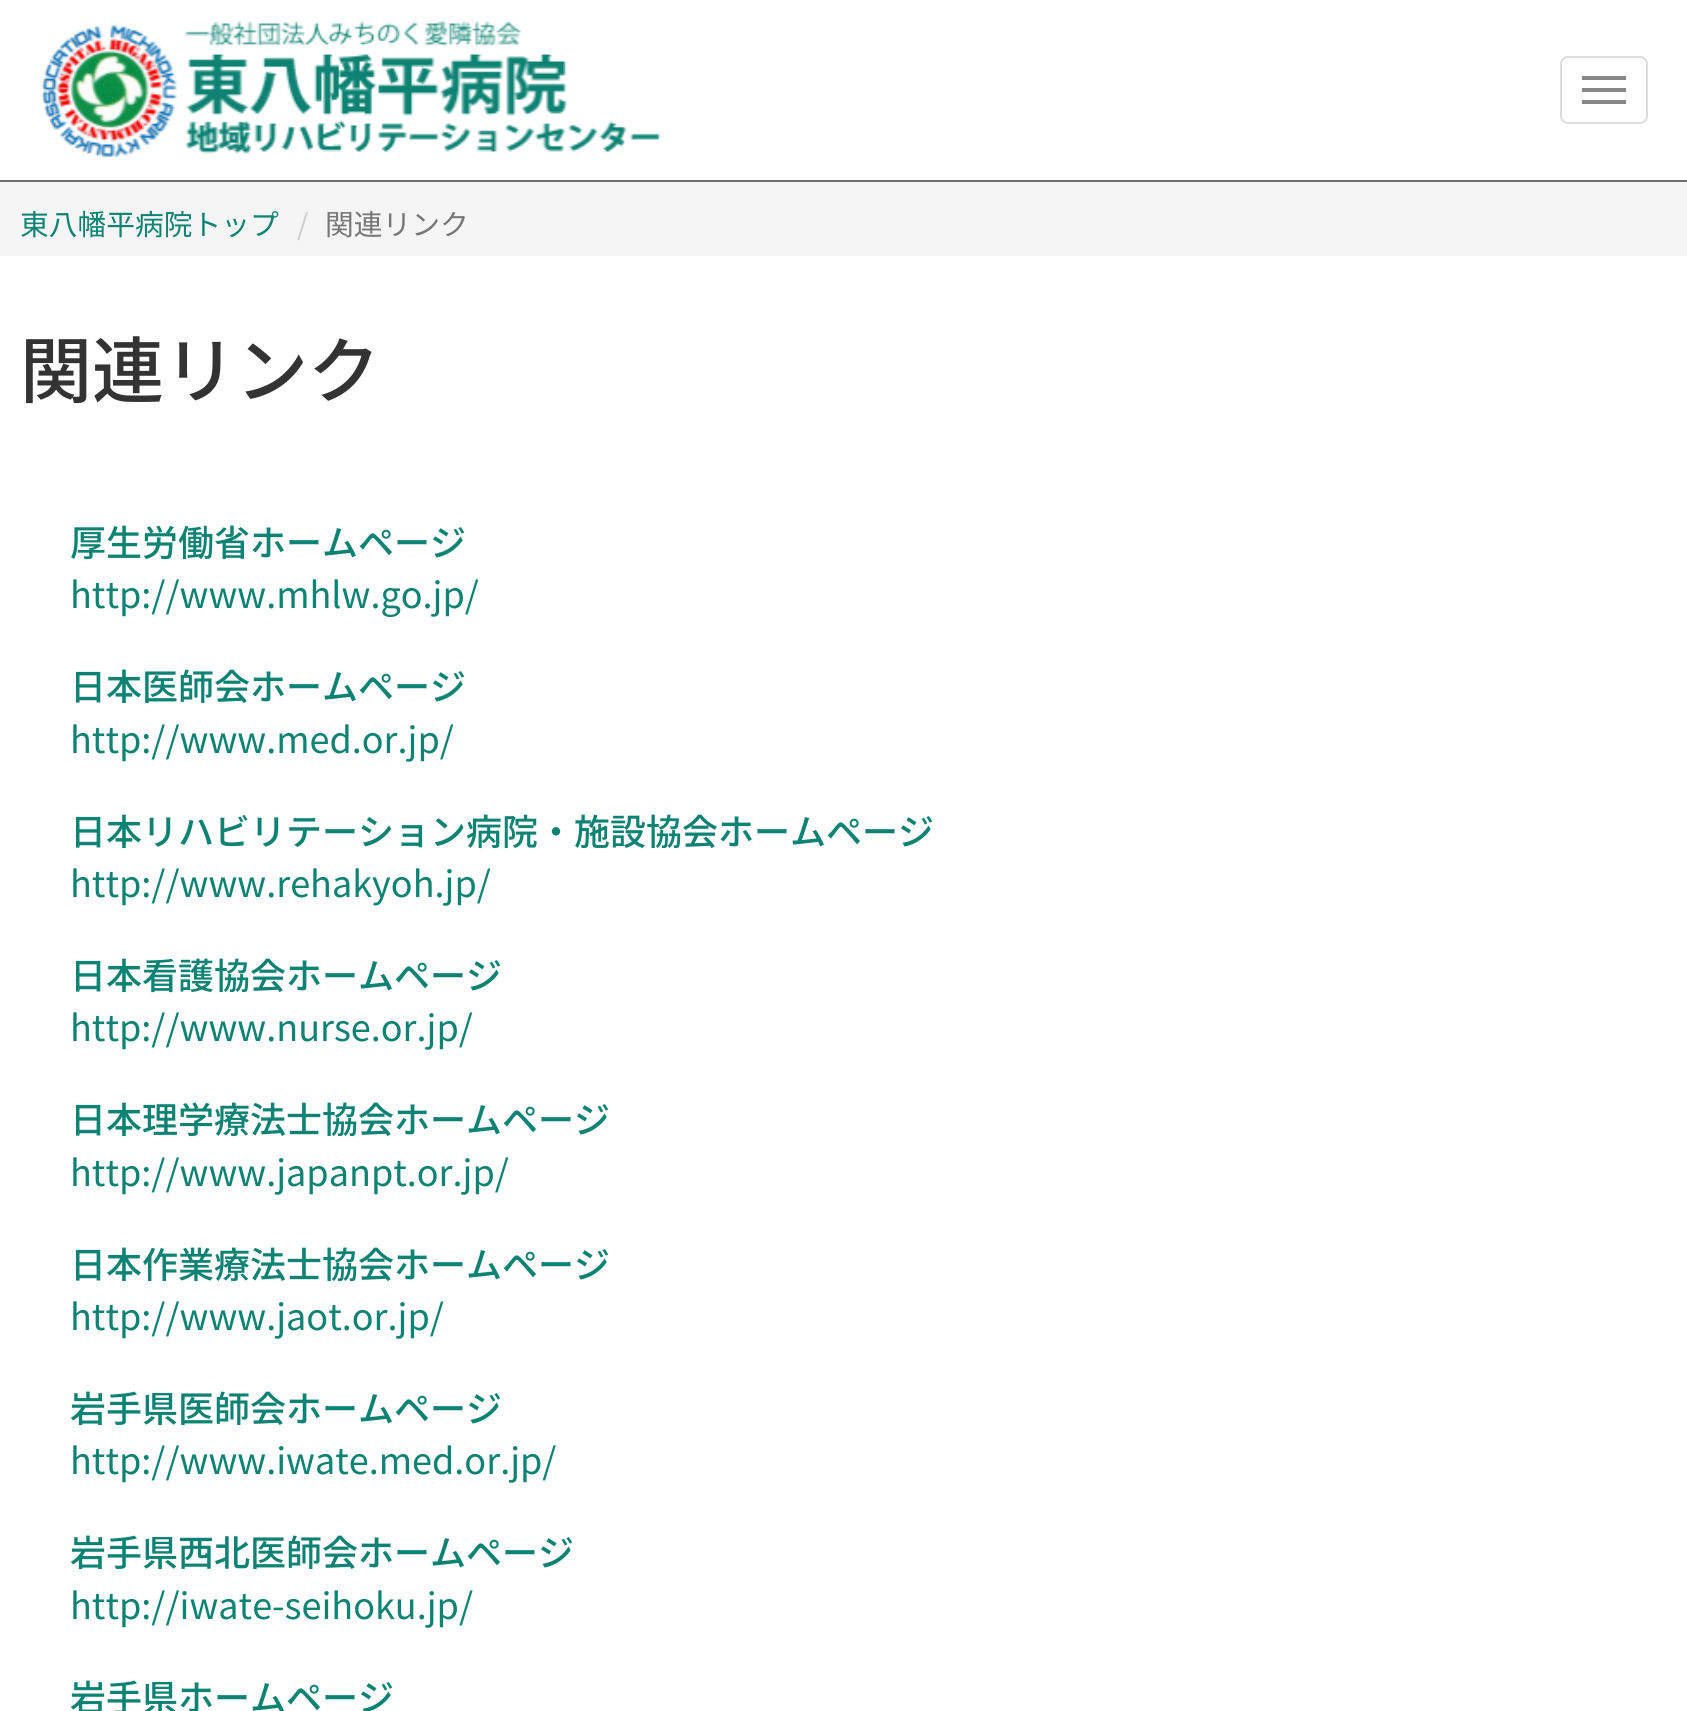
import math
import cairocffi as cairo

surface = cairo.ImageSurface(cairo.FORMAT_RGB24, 1687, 1711)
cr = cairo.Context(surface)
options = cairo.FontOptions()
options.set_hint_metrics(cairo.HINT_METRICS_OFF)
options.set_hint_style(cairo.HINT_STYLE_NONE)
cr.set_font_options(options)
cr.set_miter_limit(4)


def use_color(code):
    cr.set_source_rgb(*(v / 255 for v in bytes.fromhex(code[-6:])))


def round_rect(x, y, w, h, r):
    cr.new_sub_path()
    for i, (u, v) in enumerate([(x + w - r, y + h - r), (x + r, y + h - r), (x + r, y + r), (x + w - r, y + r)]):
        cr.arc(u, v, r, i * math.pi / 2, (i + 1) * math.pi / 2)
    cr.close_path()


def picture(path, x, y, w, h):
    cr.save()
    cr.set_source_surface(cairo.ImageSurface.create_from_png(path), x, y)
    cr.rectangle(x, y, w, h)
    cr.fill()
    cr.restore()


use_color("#ffffff")
cr.paint()
use_color("#707070")
cr.rectangle(0, 180, 1687, 2)
cr.fill()
picture("img1.png", 40, 21, 621, 137)
round_rect(1561, 57, 86, 66, 7)
use_color("#dddddd")
cr.stroke()
use_color("#888888")
cr.rectangle(1582, 76, 44, 4)
cr.fill()
cr.rectangle(1582, 88, 44, 4)
cr.fill()
cr.rectangle(1582, 100, 44, 4)
cr.fill()
use_color("#f5f5f5")
cr.rectangle(0, 182, 1687, 74)
cr.fill()
cr.select_font_face("Noto Sans JP")
cr.set_font_size(28.75)
use_color("#0e8374")
cr.move_to(20, 235)
cr.show_text("東八幡平病院トップ")
use_color("#cccccc")
cr.move_to(297, 235)
cr.show_text("/")
use_color("#777777")
cr.move_to(325, 235)
cr.show_text("関連リンク")
cr.select_font_face("Noto Sans JP Medium")
cr.set_font_size(72)
use_color("#333333")
cr.move_to(20, 397)
cr.show_text("関連リンク")
cr.set_font_size(36)
use_color("#0e8374")
cr.move_to(70, 556)
cr.show_text("厚生労働省ホームページ")
cr.select_font_face("Noto Sans JP")
cr.move_to(70, 608)
cr.show_text("http://www.mhlw.go.jp/")
cr.select_font_face("Noto Sans JP Medium")
cr.move_to(70, 700)
cr.show_text("日本医師会ホームページ")
cr.select_font_face("Noto Sans JP")
cr.move_to(70, 753)
cr.show_text("http://www.med.or.jp/")
cr.select_font_face("Noto Sans JP Medium")
cr.move_to(70, 845)
cr.show_text("日本リハビリテーション病院・施設協会ホームページ")
cr.select_font_face("Noto Sans JP")
cr.move_to(70, 897)
cr.show_text("http://www.rehakyoh.jp/")
cr.select_font_face("Noto Sans JP Medium")
cr.move_to(70, 989)
cr.show_text("日本看護協会ホームページ")
cr.select_font_face("Noto Sans JP")
cr.move_to(70, 1041)
cr.show_text("http://www.nurse.or.jp/")
cr.select_font_face("Noto Sans JP Medium")
cr.move_to(70, 1133)
cr.show_text("日本理学療法士協会ホームページ")
cr.select_font_face("Noto Sans JP")
cr.move_to(70, 1186)
cr.show_text("http://www.japanpt.or.jp/")
cr.select_font_face("Noto Sans JP Medium")
cr.move_to(70, 1278)
cr.show_text("日本作業療法士協会ホームページ")
cr.select_font_face("Noto Sans JP")
cr.move_to(70, 1330)
cr.show_text("http://www.jaot.or.jp/")
cr.select_font_face("Noto Sans JP Medium")
cr.move_to(70, 1422)
cr.show_text("岩手県医師会ホームページ")
cr.select_font_face("Noto Sans JP")
cr.move_to(70, 1474)
cr.show_text("http://www.iwate.med.or.jp/")
cr.select_font_face("Noto Sans JP Medium")
cr.move_to(70, 1566)
cr.show_text("岩手県西北医師会ホームページ")
cr.select_font_face("Noto Sans JP")
cr.move_to(70, 1619)
cr.show_text("http://iwate-seihoku.jp/")
cr.select_font_face("Noto Sans JP Medium")
cr.move_to(70, 1711)
cr.show_text("岩手県ホームページ")
surface.write_to_png("result.png")
